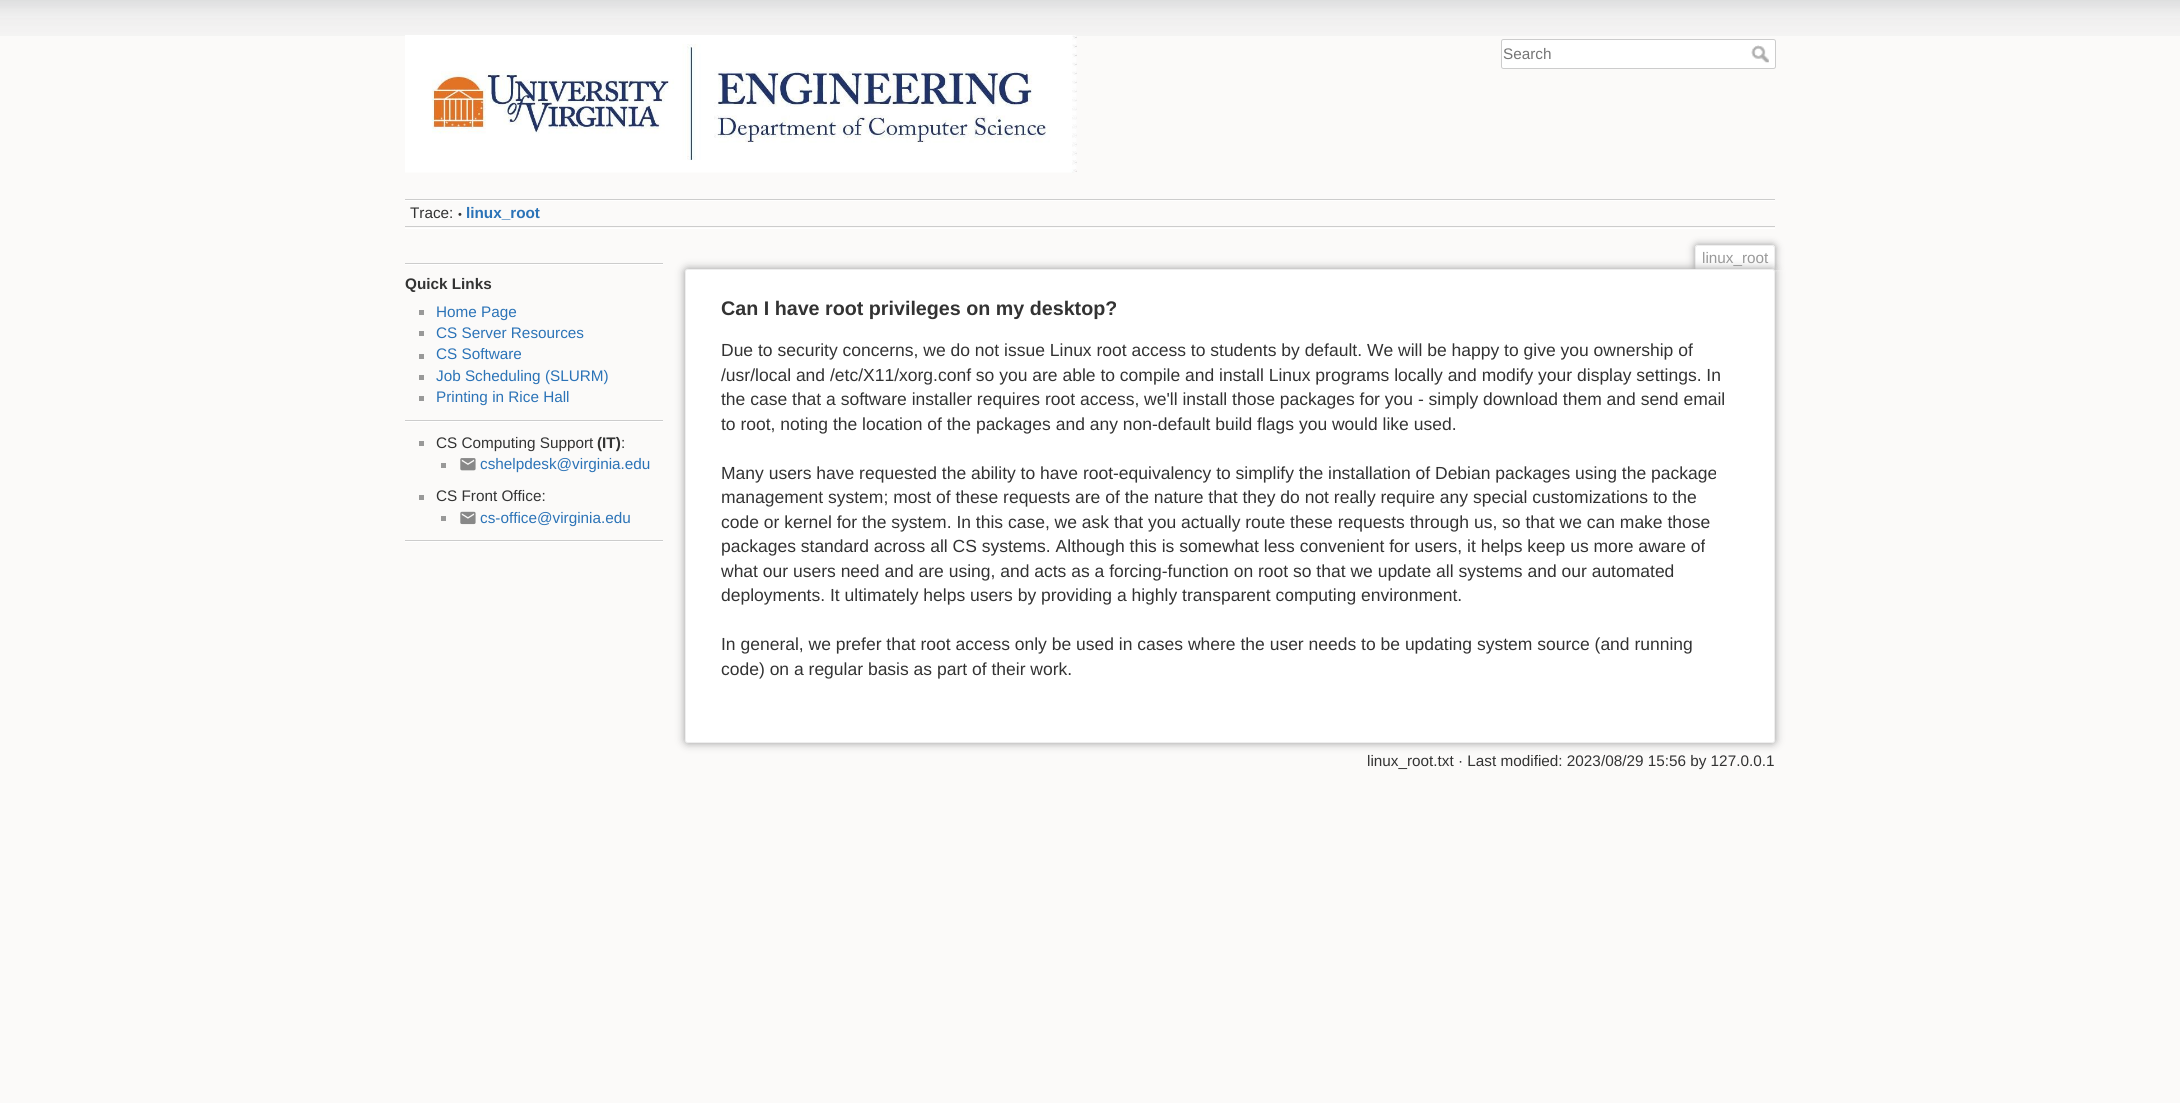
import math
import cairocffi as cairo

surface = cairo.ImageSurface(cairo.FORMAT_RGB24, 2180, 1103)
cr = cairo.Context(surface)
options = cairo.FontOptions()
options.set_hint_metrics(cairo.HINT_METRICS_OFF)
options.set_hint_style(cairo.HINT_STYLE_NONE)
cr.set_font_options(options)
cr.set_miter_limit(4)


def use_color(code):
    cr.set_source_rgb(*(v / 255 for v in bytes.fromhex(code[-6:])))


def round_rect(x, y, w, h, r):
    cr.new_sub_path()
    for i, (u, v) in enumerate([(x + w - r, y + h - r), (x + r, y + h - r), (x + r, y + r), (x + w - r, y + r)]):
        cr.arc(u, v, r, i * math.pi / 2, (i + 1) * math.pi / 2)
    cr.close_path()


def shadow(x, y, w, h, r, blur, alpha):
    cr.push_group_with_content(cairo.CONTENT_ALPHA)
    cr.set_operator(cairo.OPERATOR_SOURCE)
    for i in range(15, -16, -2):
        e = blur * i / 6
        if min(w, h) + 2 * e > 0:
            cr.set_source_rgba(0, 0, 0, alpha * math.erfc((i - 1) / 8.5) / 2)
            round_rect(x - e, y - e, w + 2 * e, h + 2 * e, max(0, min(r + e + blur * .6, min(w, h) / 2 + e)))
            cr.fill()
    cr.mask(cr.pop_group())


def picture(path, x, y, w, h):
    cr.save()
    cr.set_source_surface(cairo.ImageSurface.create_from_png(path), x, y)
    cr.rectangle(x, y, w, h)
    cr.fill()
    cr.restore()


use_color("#fbfaf9")
cr.paint()
picture("img1.png", 0, 0, 2180, 36)
picture("img2.png", 405, 35, 672, 138)
use_color("#ffffff")
round_rect(1501.5, 39.5, 274, 29, 2)
cr.fill_preserve()
use_color("#cccccc")
cr.set_line_width(1)
cr.stroke()
cr.select_font_face("Liberation Sans")
cr.set_font_size(15.3)
use_color("#757575")
cr.move_to(1503, 59)
cr.show_text("Search")
picture("img3.png", 1751, 45, 18, 18)
use_color("#cccccc")
cr.rectangle(405, 199, 1370, 1)
cr.fill()
use_color("#ffffff")
cr.rectangle(405, 228, 1370, 1)
cr.fill()
cr.rectangle(405, 200, 1370, 1)
cr.fill()
use_color("#cccccc")
cr.rectangle(405, 226, 1370, 1)
cr.fill()
use_color("#333333")
cr.move_to(410, 218)
cr.show_text("Trace:")
cr.set_font_size(11)
cr.move_to(458, 218)
cr.show_text("•")
cr.select_font_face("Liberation Sans", cairo.FONT_SLANT_NORMAL, cairo.FONT_WEIGHT_BOLD)
cr.set_font_size(15.3)
use_color("#2b73b7")
cr.move_to(466, 218)
cr.show_text("linux_root")
use_color("#cccccc")
cr.rectangle(405, 263, 258, 1)
cr.fill()
use_color("#ffffff")
cr.rectangle(405, 264, 258, 1)
cr.fill()
use_color("#333333")
cr.move_to(405, 289)
cr.show_text("Quick Links")
use_color("#999999")
cr.rectangle(419, 310, 5, 5)
cr.fill()
cr.select_font_face("Liberation Sans")
use_color("#2b73b7")
cr.move_to(436, 317)
cr.show_text("Home Page")
use_color("#999999")
cr.rectangle(419, 331, 5, 5)
cr.fill()
use_color("#2b73b7")
cr.move_to(436, 338)
cr.show_text("CS Server Resources")
use_color("#999999")
cr.rectangle(419, 354, 5, 5)
cr.fill()
use_color("#2b73b7")
cr.move_to(436, 359)
cr.show_text("CS Software")
use_color("#999999")
cr.rectangle(419, 375, 5, 5)
cr.fill()
use_color("#2b73b7")
cr.move_to(436, 381)
cr.show_text("Job Scheduling (SLURM)")
use_color("#999999")
cr.rectangle(419, 396, 5, 5)
cr.fill()
use_color("#2b73b7")
cr.move_to(436, 402)
cr.show_text("Printing in Rice Hall")
use_color("#cccccc")
cr.rectangle(405, 420, 258, 1)
cr.fill()
use_color("#ffffff")
cr.rectangle(405, 421, 258, 1)
cr.fill()
use_color("#999999")
cr.rectangle(419, 441, 5, 5)
cr.fill()
use_color("#333333")
cr.move_to(436, 448)
cr.show_text("CS Computing Support")
cr.select_font_face("Liberation Sans", cairo.FONT_SLANT_NORMAL, cairo.FONT_WEIGHT_BOLD)
cr.move_to(597, 448)
cr.show_text("(IT)")
cr.select_font_face("Liberation Sans")
cr.move_to(621, 448)
cr.show_text(":")
use_color("#999999")
cr.rectangle(441, 463, 5, 5)
cr.fill()
picture("img4.png", 460, 458, 16, 13)
use_color("#2b73b7")
cr.move_to(480, 469)
cr.show_text("cshelpdesk@virginia.edu")
use_color("#999999")
cr.rectangle(419, 495, 5, 5)
cr.fill()
use_color("#333333")
cr.move_to(436, 501)
cr.show_text("CS Front Office:")
use_color("#999999")
cr.rectangle(441, 516, 5, 5)
cr.fill()
picture("img5.png", 460, 511, 16, 14)
use_color("#2b73b7")
cr.move_to(480, 523)
cr.show_text("cs-office@virginia.edu")
use_color("#cccccc")
cr.rectangle(405, 540, 258, 1)
cr.fill()
use_color("#ffffff")
cr.rectangle(405, 541, 258, 1)
cr.fill()
cr.save()
cr.rectangle(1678, 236, 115, 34)
cr.clip()
use_color("#999999")
shadow(1695, 245, 80, 25, 2.5, 4, 1)
cr.restore()
cr.new_path()
cr.move_to(1697, 246)
cr.line_to(1773, 246)
cr.curve_to(1773.5, 246, 1774, 246.5, 1774, 247)
cr.line_to(1774, 270)
cr.line_to(1696, 270)
cr.line_to(1696, 247)
cr.curve_to(1696, 246.5, 1696.5, 246, 1697, 246)
cr.close_path()
cr.fill()
use_color("#eeeeee")
cr.rectangle(1696, 245, 78, 1)
cr.fill()
cr.rectangle(1774, 246, 1, 24)
cr.fill()
cr.rectangle(1695, 246, 1, 24)
cr.fill()
use_color("#999999")
cr.move_to(1702, 263)
cr.show_text("linux_root")
use_color("#999999")
shadow(685, 269, 1090, 474, 2.5, 4.5, 1)
use_color("#ffffff")
round_rect(685.5, 269.5, 1089, 473, 2)
cr.fill_preserve()
use_color("#eeeeee")
cr.stroke()
cr.select_font_face("Liberation Sans", cairo.FONT_SLANT_NORMAL, cairo.FONT_WEIGHT_BOLD)
cr.set_font_size(19.7)
use_color("#333333")
cr.move_to(721, 315)
cr.show_text("Can I have root privileges on my desktop?")
cr.select_font_face("Liberation Sans")
cr.set_font_size(17.5)
cr.move_to(721, 356)
cr.show_text("Due to security concerns, we do not issue Linux root access to students by default. We will be happy to give you ownership of")
cr.move_to(721, 381)
cr.show_text("/usr/local and /etc/X11/xorg.conf so you are able to compile and install Linux programs locally and modify your display settings. In")
cr.move_to(721, 405)
cr.show_text("the case that a software installer requires root access, we'll install those packages for you - simply download them and send email")
cr.move_to(721, 430)
cr.show_text("to root, noting the location of the packages and any non-default build flags you would like used.")
cr.move_to(721, 479)
cr.show_text("Many users have requested the ability to have root-equivalency to simplify the installation of Debian packages using the package")
cr.move_to(721, 503)
cr.show_text("management system; most of these requests are of the nature that they do not really require any special customizations to the")
cr.move_to(721, 528)
cr.show_text("code or kernel for the system. In this case, we ask that you actually route these requests through us, so that we can make those")
cr.move_to(721, 552)
cr.show_text("packages standard across all CS systems. Although this is somewhat less convenient for users, it helps keep us more aware of")
cr.move_to(721, 577)
cr.show_text("what our users need and are using, and acts as a forcing-function on root so that we update all systems and our automated")
cr.move_to(721, 601)
cr.show_text("deployments. It ultimately helps users by providing a highly transparent computing environment.")
cr.move_to(721, 650)
cr.show_text("In general, we prefer that root access only be used in cases where the user needs to be updating system source (and running")
cr.move_to(721, 675)
cr.show_text("code) on a regular basis as part of their work.")
cr.set_font_size(15.3)
cr.move_to(1367, 766)
cr.show_text("linux_root.txt · Last modified: 2023/08/29 15:56 by 127.0.0.1")
surface.write_to_png("result.png")
